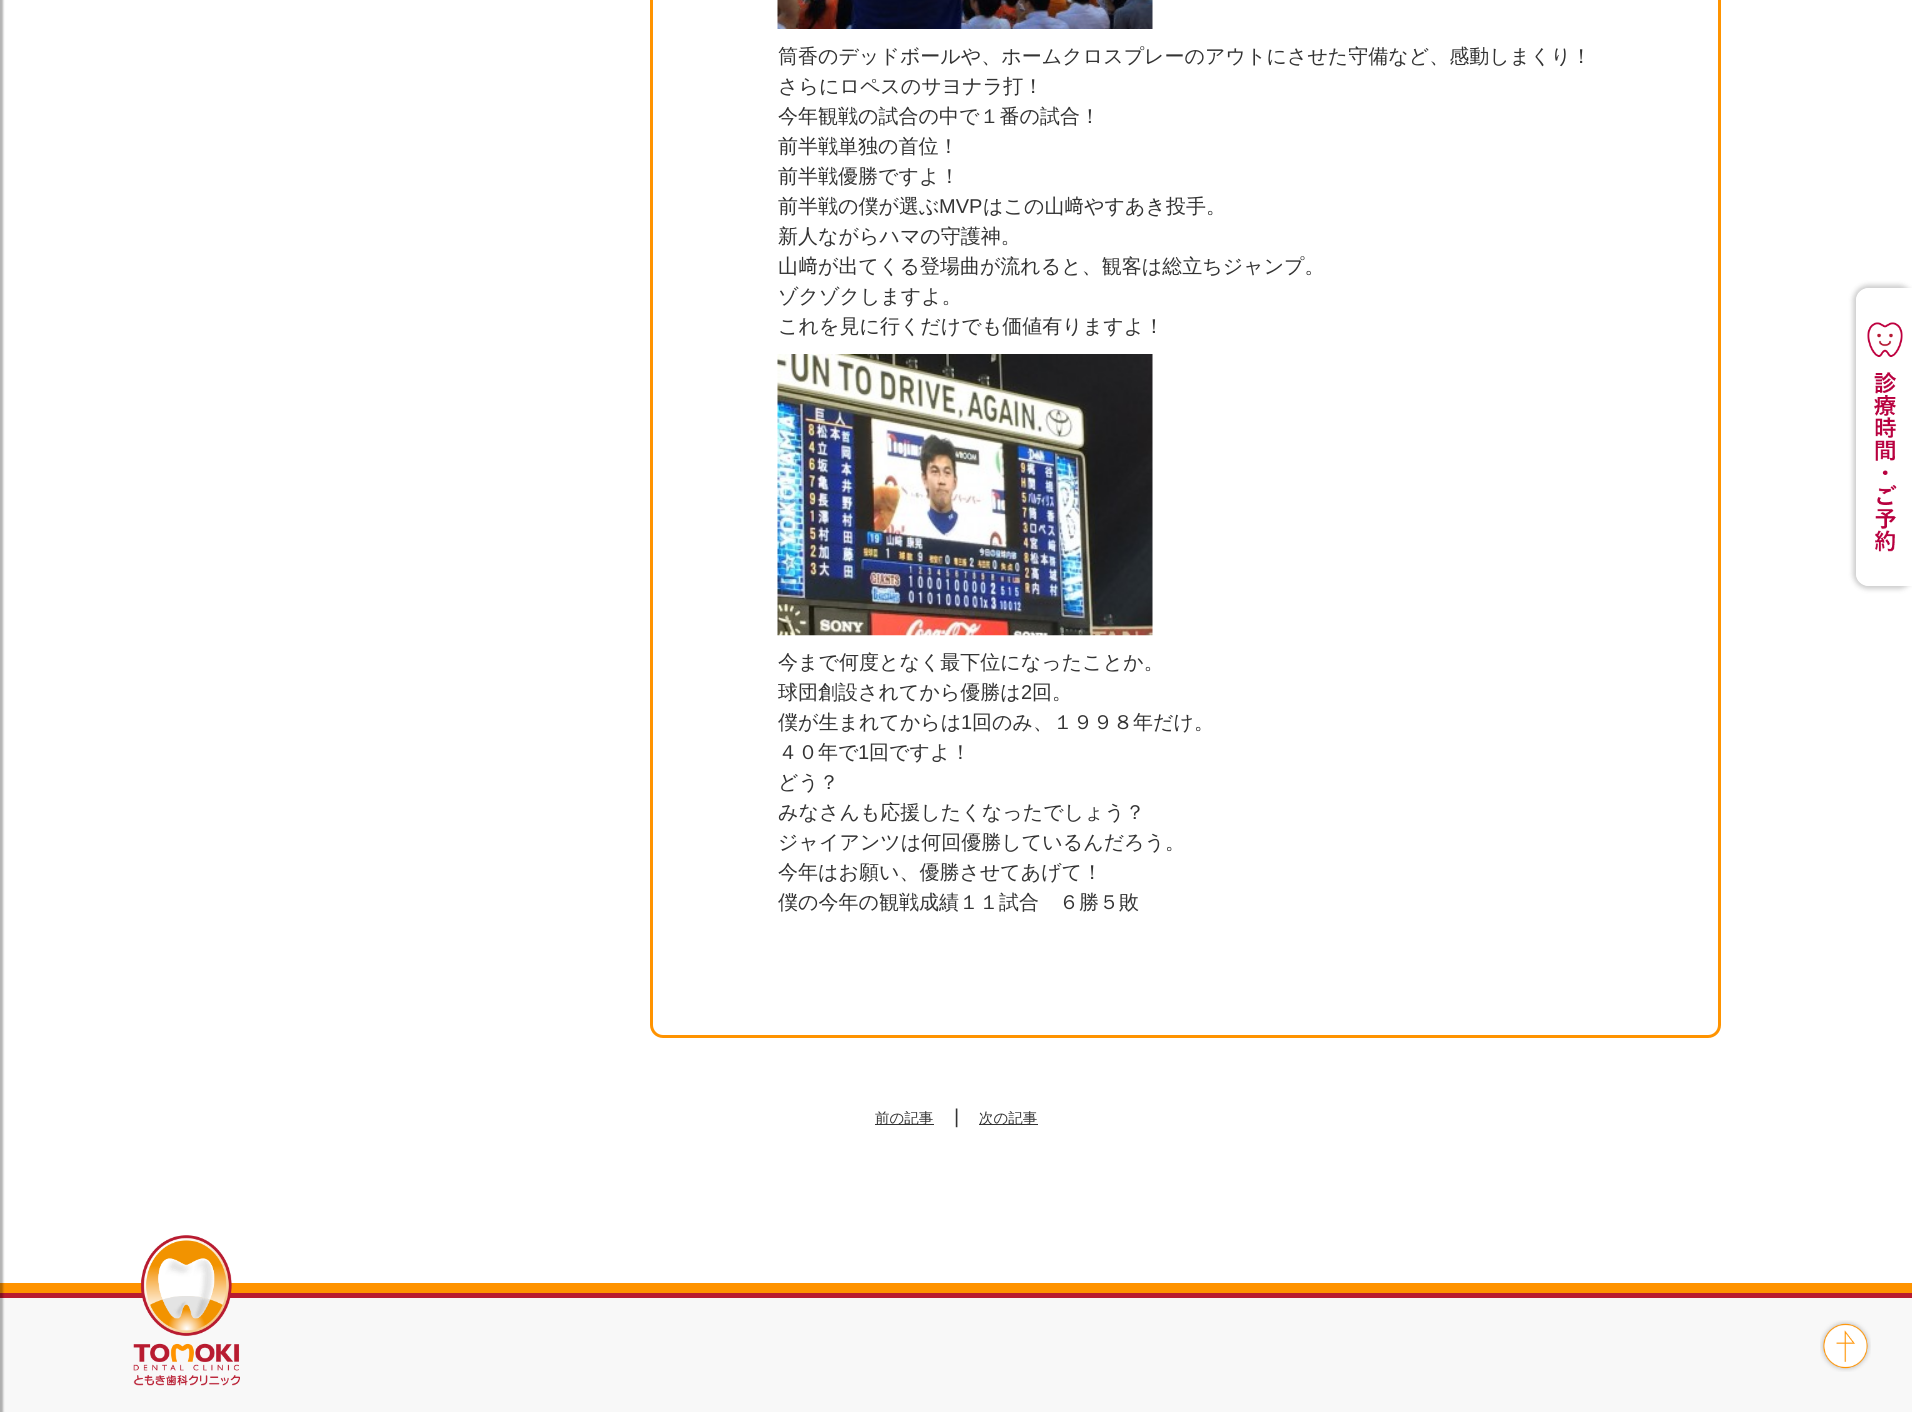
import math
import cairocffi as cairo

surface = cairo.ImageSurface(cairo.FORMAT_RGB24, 1912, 1412)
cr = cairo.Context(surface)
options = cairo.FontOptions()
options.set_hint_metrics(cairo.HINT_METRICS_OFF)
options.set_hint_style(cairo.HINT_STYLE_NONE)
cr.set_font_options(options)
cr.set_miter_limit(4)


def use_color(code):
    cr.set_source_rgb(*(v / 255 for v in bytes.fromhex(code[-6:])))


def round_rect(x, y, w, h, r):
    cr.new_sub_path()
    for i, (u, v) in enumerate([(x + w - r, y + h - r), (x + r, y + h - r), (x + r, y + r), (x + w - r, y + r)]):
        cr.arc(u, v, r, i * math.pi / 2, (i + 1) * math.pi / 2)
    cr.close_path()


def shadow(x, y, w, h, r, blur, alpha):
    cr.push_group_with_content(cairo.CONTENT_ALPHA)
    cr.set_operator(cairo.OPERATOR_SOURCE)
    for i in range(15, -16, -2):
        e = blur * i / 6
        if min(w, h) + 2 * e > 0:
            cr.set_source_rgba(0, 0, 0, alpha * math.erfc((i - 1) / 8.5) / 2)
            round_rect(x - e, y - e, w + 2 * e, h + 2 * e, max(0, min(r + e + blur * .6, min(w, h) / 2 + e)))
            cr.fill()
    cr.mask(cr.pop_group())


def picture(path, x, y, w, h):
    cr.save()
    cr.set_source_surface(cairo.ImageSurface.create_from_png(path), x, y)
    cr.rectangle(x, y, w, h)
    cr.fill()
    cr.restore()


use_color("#ffffff")
cr.paint()
use_color("#f8f8f8")
cr.rectangle(0, 1298, 1912, 114)
cr.fill()
use_color("#ff9300")
cr.rectangle(0, 1283, 1912, 10)
cr.fill()
use_color("#b81b30")
cr.rectangle(0, 1293, 1912, 5)
cr.fill()
use_color("#000000")
shadow(-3, -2, 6, 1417, 0, 1, 0.3)
round_rect(651.5, -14.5, 1068, 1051, 11.5)
use_color("#ff9300")
cr.set_line_width(3)
cr.stroke()
picture("img1.png", 777, 0, 376, 29)
cr.select_font_face("WenQuanYi Zen Hei Medium")
cr.set_font_size(20)
use_color("#333333")
cr.move_to(778, 63)
cr.show_text("筒香のデッドボールや、ホームクロスプレーのアウトにさせた守備など、感動しまくり！")
cr.move_to(778, 93)
cr.show_text("さらにロペスのサヨナラ打！")
cr.move_to(778, 123)
cr.show_text("今年観戦の試合の中で１番の試合！")
cr.move_to(778, 153)
cr.show_text("前半戦単独の首位！")
cr.move_to(778, 183)
cr.show_text("前半戦優勝ですよ！")
cr.move_to(778, 213)
cr.show_text("前半戦の僕が選ぶ")
cr.select_font_face("Liberation Sans")
cr.move_to(939, 213)
cr.show_text("MVP")
cr.select_font_face("WenQuanYi Zen Hei Medium")
cr.move_to(983, 213)
cr.show_text("はこの山")
cr.select_font_face("IPAPGothic")
cr.move_to(1064, 213)
cr.show_text("﨑")
cr.select_font_face("WenQuanYi Zen Hei Medium")
cr.move_to(1084, 213)
cr.show_text("やすあき投手。")
cr.move_to(778, 243)
cr.show_text("新人ながらハマの守護神。")
cr.move_to(778, 273)
cr.show_text("山")
cr.select_font_face("IPAPGothic")
cr.move_to(798, 273)
cr.show_text("﨑")
cr.select_font_face("WenQuanYi Zen Hei Medium")
cr.move_to(818, 273)
cr.show_text("が出てくる登場曲が流れると、観客は総立ちジャンプ。")
cr.move_to(778, 303)
cr.show_text("ゾクゾクしますよ。")
cr.move_to(778, 333)
cr.show_text("これを見に行くだけでも価値有りますよ！")
picture("img2.png", 777, 354, 376, 282)
cr.move_to(778, 669)
cr.show_text("今まで何度となく最下位になったことか。")
cr.move_to(778, 699)
cr.show_text("球団創設されてから優勝は")
cr.select_font_face("Liberation Sans")
cr.move_to(1021, 699)
cr.show_text("2")
cr.select_font_face("WenQuanYi Zen Hei Medium")
cr.move_to(1032, 699)
cr.show_text("回。")
cr.move_to(778, 729)
cr.show_text("僕が生まれてからは")
cr.select_font_face("Liberation Sans")
cr.move_to(961, 729)
cr.show_text("1")
cr.select_font_face("WenQuanYi Zen Hei Medium")
cr.move_to(972, 729)
cr.show_text("回のみ、１９９８年だけ。")
cr.move_to(778, 759)
cr.show_text("４０年で")
cr.select_font_face("Liberation Sans")
cr.move_to(858, 759)
cr.show_text("1")
cr.select_font_face("WenQuanYi Zen Hei Medium")
cr.move_to(869, 759)
cr.show_text("回ですよ！")
cr.move_to(778, 789)
cr.show_text("どう？")
cr.move_to(778, 819)
cr.show_text("みなさんも応援したくなったでしょう？")
cr.move_to(778, 849)
cr.show_text("ジャイアンツは何回優勝しているんだろう。")
cr.move_to(778, 879)
cr.show_text("今年はお願い、優勝させてあげて！")
cr.move_to(778, 909)
cr.show_text("僕の今年の観戦成績１１試合　６勝５敗")
cr.rectangle(875, 1124, 59, 1)
cr.fill()
cr.set_font_size(14.5)
cr.move_to(875, 1123)
cr.show_text("前の記事")
cr.select_font_face("Liberation Sans")
cr.set_font_size(20)
cr.move_to(954, 1123)
cr.show_text("|")
cr.rectangle(979, 1124, 59, 1)
cr.fill()
cr.select_font_face("WenQuanYi Zen Hei Medium")
cr.set_font_size(14.5)
cr.move_to(979, 1123)
cr.show_text("次の記事")
use_color("#000000")
shadow(1853, 285, 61, 304, 15, 2.5, 0.2)
use_color("#ffffff")
cr.new_path()
cr.move_to(1869, 288)
cr.line_to(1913, 288)
cr.line_to(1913, 586)
cr.line_to(1869, 586)
cr.curve_to(1862, 586, 1856, 580, 1856, 573)
cr.line_to(1856, 301)
cr.curve_to(1856, 294, 1862, 288, 1869, 288)
cr.close_path()
cr.fill()
cr.set_fill_rule(cairo.FILL_RULE_EVEN_ODD)
cr.new_path()
cr.move_to(1869, 288)
cr.line_to(1912, 288)
cr.line_to(1912, 586)
cr.line_to(1869, 586)
cr.curve_to(1862, 586, 1856, 581, 1856, 574)
cr.line_to(1856, 300)
cr.curve_to(1856, 293, 1862, 288, 1869, 288)
cr.close_path()
cr.move_to(1869, 291)
cr.line_to(1912, 291)
cr.line_to(1912, 582)
cr.line_to(1869, 582)
cr.curve_to(1864, 582, 1860, 579, 1860, 574)
cr.line_to(1860, 300)
cr.curve_to(1860, 295, 1864, 291, 1869, 291)
cr.close_path()
cr.fill()
picture("img3.png", 1867, 322, 36, 230)
picture("img4.png", 133, 1235, 107, 151)
picture("img5.png", 1820, 1320, 51, 52)
surface.write_to_png("result.png")
